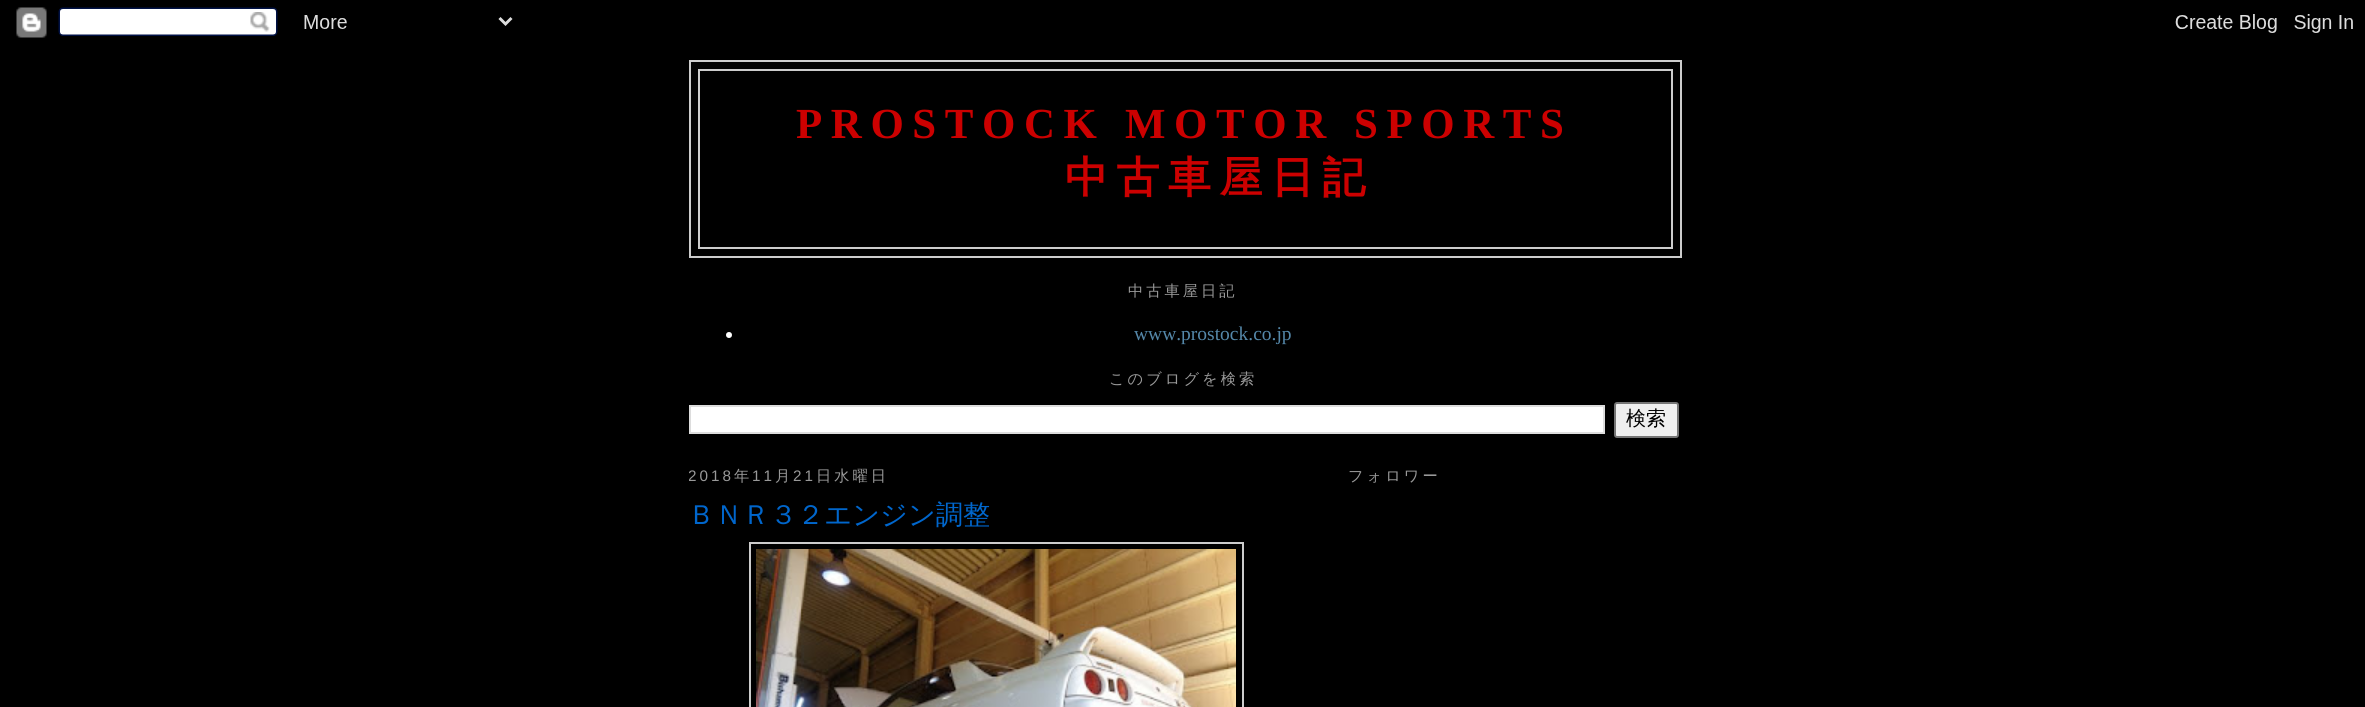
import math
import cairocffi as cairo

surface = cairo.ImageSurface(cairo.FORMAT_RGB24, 2365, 707)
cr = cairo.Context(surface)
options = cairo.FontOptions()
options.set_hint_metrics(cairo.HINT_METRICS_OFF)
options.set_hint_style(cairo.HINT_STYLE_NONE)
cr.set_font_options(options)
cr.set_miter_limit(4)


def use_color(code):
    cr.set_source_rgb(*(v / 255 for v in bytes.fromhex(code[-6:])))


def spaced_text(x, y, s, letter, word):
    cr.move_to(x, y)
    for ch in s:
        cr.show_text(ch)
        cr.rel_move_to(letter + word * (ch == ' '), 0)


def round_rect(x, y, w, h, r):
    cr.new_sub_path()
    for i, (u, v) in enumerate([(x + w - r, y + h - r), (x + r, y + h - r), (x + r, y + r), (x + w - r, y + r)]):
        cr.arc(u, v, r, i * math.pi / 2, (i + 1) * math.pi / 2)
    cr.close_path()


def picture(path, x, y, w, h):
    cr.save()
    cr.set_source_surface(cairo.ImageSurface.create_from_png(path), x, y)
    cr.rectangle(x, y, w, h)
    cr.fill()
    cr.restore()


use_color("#000000")
cr.paint()
picture("img1.png", 16, 7, 2337, 31)
cr.rectangle(690, 61, 991, 196)
use_color("#cccccc")
cr.stroke()
cr.rectangle(699, 70, 973, 178)
cr.stroke()
cr.select_font_face("Liberation Serif", cairo.FONT_SLANT_NORMAL, cairo.FONT_WEIGHT_BOLD)
cr.set_font_size(42.9)
use_color("#cc0000")
spaced_text(796, 138, "PROSTOCK MOTOR SPORTS", 8.6, 0)
cr.select_font_face("WenQuanYi Zen Hei", cairo.FONT_SLANT_NORMAL, cairo.FONT_WEIGHT_BOLD)
spaced_text(1065, 192, "中古車屋日記", 8.6, 0)
cr.select_font_face("WenQuanYi Zen Hei Medium")
cr.set_font_size(15.25)
use_color("#999999")
spaced_text(1128, 296, "中古車屋日記", 3, 0)
use_color("#ffffff")
cr.new_path()
cr.arc(729, 335, 3, 0, 2 * math.pi)
cr.fill()
cr.select_font_face("Liberation Serif")
cr.set_font_size(19.5)
use_color("#5588aa")
cr.move_to(1134, 340)
cr.show_text("www.prostock.co.jp")
cr.select_font_face("WenQuanYi Zen Hei Medium")
cr.set_font_size(15.25)
use_color("#999999")
spaced_text(1109, 384, "このブログを検索", 3, 0)
use_color("#ffffff")
cr.rectangle(690, 406, 914, 27)
cr.fill_preserve()
use_color("#dddddd")
cr.stroke()
use_color("#efefef")
round_rect(1615, 403, 63, 34, 2)
cr.fill_preserve()
use_color("#767676")
cr.stroke()
cr.set_font_size(20)
use_color("#000000")
cr.move_to(1626, 425)
cr.show_text("検索")
cr.save()
cr.rectangle(689, 444, 615, 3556)
cr.clip()
cr.select_font_face("Liberation Sans")
cr.set_font_size(15.25)
use_color("#999999")
spaced_text(688, 481, "2018", 3, 0)
cr.restore()
cr.set_font_size(15.25)
use_color("#999999")
spaced_text(734, 481, "年", 3, 0)
cr.select_font_face("Liberation Sans")
spaced_text(752, 481, "11", 3, 0)
cr.select_font_face("WenQuanYi Zen Hei Medium")
spaced_text(775, 481, "月", 3, 0)
cr.select_font_face("Liberation Sans")
spaced_text(793, 481, "21", 3, 0)
cr.select_font_face("WenQuanYi Zen Hei Medium")
spaced_text(816, 481, "日水曜日", 3, 0)
cr.set_font_size(27.25)
use_color("#0066cc")
cr.move_to(688, 524)
cr.show_text("ＢＮＲ３２エンジン調整")
cr.rectangle(750, 543, 493, 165)
use_color("#cccccc")
cr.stroke()
picture("img2.png", 756, 549, 480, 158)
cr.set_font_size(15.25)
use_color("#999999")
spaced_text(1348, 481, "フォロワー", 3, 0)
surface.write_to_png("result.png")
